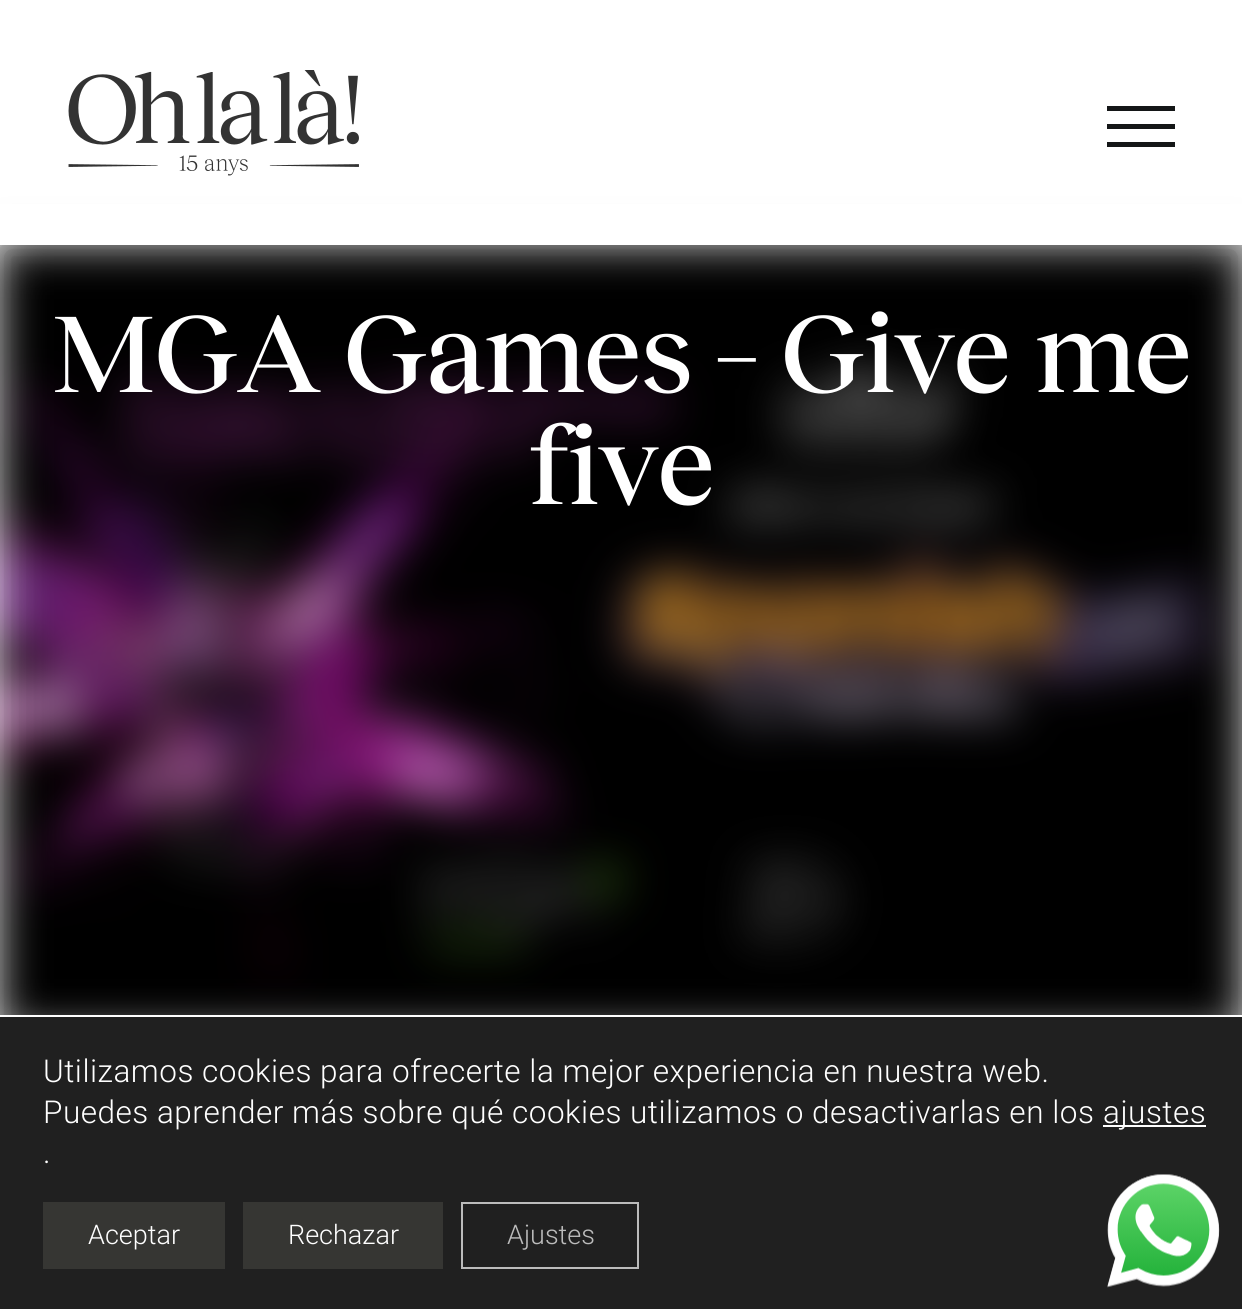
import math
import cairocffi as cairo

surface = cairo.ImageSurface(cairo.FORMAT_RGB24, 1242, 1309)
cr = cairo.Context(surface)
options = cairo.FontOptions()
options.set_hint_metrics(cairo.HINT_METRICS_OFF)
options.set_hint_style(cairo.HINT_STYLE_NONE)
cr.set_font_options(options)
cr.set_miter_limit(4)


def use_color(code):
    cr.set_source_rgb(*(v / 255 for v in bytes.fromhex(code[-6:])))


def spaced_text(x, y, s, letter, word):
    cr.move_to(x, y)
    for ch in s:
        cr.show_text(ch)
        cr.rel_move_to(letter + word * (ch == ' '), 0)


def round_rect(x, y, w, h, r):
    cr.new_sub_path()
    for i, (u, v) in enumerate([(x + w - r, y + h - r), (x + r, y + h - r), (x + r, y + r), (x + w - r, y + r)]):
        cr.arc(u, v, r, i * math.pi / 2, (i + 1) * math.pi / 2)
    cr.close_path()


def shadow(x, y, w, h, r, blur, alpha):
    cr.push_group_with_content(cairo.CONTENT_ALPHA)
    cr.set_operator(cairo.OPERATOR_SOURCE)
    for i in range(15, -16, -2):
        e = blur * i / 6
        if min(w, h) + 2 * e > 0:
            cr.set_source_rgba(0, 0, 0, alpha * math.erfc((i - 1) / 8.5) / 2)
            round_rect(x - e, y - e, w + 2 * e, h + 2 * e, max(0, min(r + e + blur * .6, min(w, h) / 2 + e)))
            cr.fill()
    cr.mask(cr.pop_group())


def picture(path, x, y, w, h):
    cr.save()
    cr.set_source_surface(cairo.ImageSurface.create_from_png(path), x, y)
    cr.rectangle(x, y, w, h)
    cr.fill()
    cr.restore()


use_color("#ffffff")
cr.paint()
picture("img2.png", 0, 245, 1242, 770)
use_color("#000000")
shadow(0, 245, 1242, 788, 0, 22.5, 0.3)
use_color("#ffffff")
cr.rectangle(0, 204, 1242, 41)
cr.fill()
picture("img1.png", 68, 70, 291, 106)
use_color("#141617")
cr.rectangle(1107, 106, 68, 5)
cr.fill()
cr.rectangle(1107, 124, 68, 5)
cr.fill()
cr.rectangle(1107, 142, 68, 5)
cr.fill()
cr.select_font_face("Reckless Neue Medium")
cr.set_font_size(112.5)
use_color("#ffffff")
spaced_text(51, 392, "MGA Games – Give me", -2.25, 0)
spaced_text(528, 504, "five", -2.25, 0)
use_color("#202020")
cr.rectangle(0, 1017, 1242, 292)
cr.fill()
use_color("#ffffff")
cr.rectangle(0, 1015, 1242, 2)
cr.fill()
cr.select_font_face("Roboto Light")
cr.set_font_size(31.5)
spaced_text(43, 1082, "Utilizamos cookies para ofrecerte la mejor experiencia en nuestra web.", 0.5, 0)
spaced_text(43, 1123, "Puedes aprender más sobre qué cookies utilizamos o desactivarlas en los", 0.5, 0)
cr.rectangle(1103, 1125, 103, 2)
cr.fill()
spaced_text(1103, 1123, "ajustes", 0.5, 0)
spaced_text(43, 1163, ".", 0.5, 0)
use_color("#363633")
cr.rectangle(43, 1202, 182, 67)
cr.fill()
cr.set_font_size(27)
use_color("#ffffff")
cr.move_to(88, 1244)
cr.show_text("Aceptar")
use_color("#363633")
cr.rectangle(243, 1202, 200, 67)
cr.fill()
use_color("#ffffff")
cr.move_to(288, 1244)
cr.show_text("Rechazar")
cr.rectangle(462, 1203, 176, 65)
use_color("#bcbcbc")
cr.stroke()
cr.move_to(507, 1244)
cr.show_text("Ajustes")
picture("img3.png", 1107, 1174, 113, 114)
surface.write_to_png("result.png")
